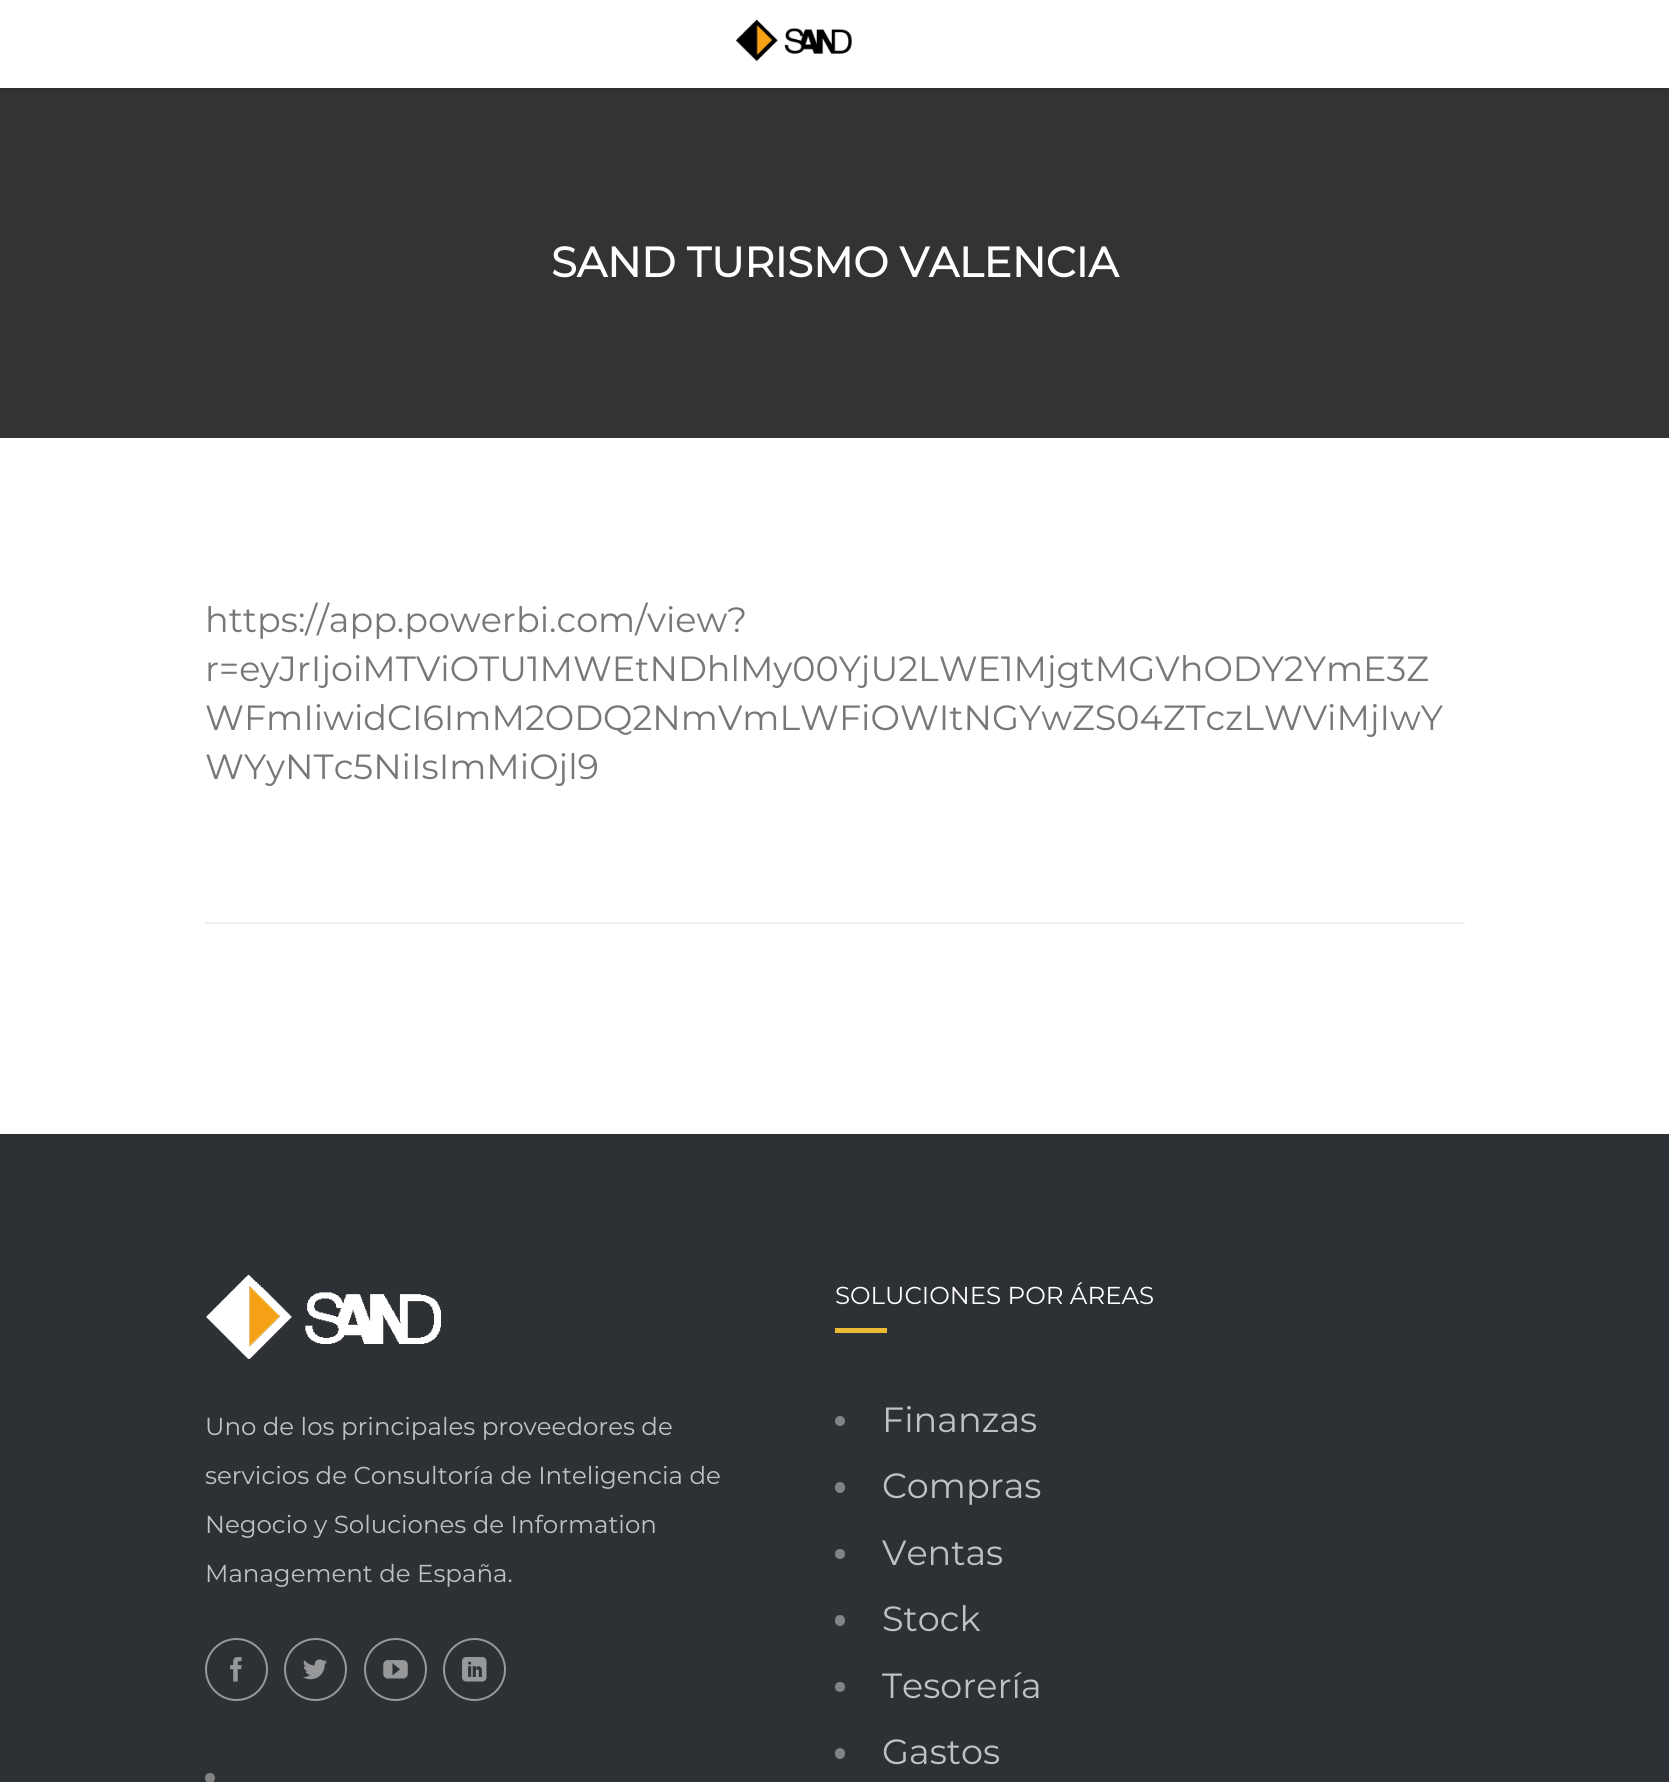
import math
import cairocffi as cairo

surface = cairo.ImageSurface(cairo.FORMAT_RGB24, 1669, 1782)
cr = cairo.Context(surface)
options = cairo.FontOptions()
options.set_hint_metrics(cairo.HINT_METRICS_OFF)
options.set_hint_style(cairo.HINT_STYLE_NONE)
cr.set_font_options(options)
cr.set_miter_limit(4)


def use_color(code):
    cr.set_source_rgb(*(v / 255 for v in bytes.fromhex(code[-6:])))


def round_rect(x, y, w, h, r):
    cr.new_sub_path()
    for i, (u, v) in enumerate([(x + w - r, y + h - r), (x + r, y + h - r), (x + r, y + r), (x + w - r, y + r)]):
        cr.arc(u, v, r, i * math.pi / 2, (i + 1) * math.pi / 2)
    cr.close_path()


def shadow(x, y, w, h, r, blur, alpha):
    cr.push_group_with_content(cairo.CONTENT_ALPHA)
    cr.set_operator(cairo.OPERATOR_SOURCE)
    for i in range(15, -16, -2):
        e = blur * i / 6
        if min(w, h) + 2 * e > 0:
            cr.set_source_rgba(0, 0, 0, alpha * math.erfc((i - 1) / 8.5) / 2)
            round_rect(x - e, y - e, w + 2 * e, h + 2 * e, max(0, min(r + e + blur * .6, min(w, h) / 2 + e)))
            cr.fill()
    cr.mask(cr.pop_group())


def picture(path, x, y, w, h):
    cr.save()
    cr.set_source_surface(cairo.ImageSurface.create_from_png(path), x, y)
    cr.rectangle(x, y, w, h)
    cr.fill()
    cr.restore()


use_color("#ffffff")
cr.paint()
use_color("#333333")
cr.rectangle(0, 88, 1669, 350)
cr.fill()
use_color("#000000")
shadow(0, 2, 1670, 87, 0, 2.5, 0.11)
use_color("#ffffff")
cr.rectangle(0, 0, 1669, 88)
cr.fill()
picture("img1.png", 735, 19, 117, 43)
cr.select_font_face("Montserrat", cairo.FONT_SLANT_NORMAL, cairo.FONT_WEIGHT_BOLD)
cr.set_font_size(42)
cr.move_to(551, 277)
cr.show_text("SAND TURISMO VALENCIA")
cr.select_font_face("Montserrat Thin")
cr.set_font_size(35)
use_color("#777777")
cr.move_to(205, 632)
cr.show_text("https://app.powerbi.com/view?")
cr.move_to(205, 681)
cr.show_text("r=eyJrIjoiMTViOTU1MWEtNDhlMy00YjU2LWE1MjgtMGVhODY2YmE3Z")
cr.move_to(205, 730)
cr.show_text("WFmIiwidCI6ImM2ODQ2NmVmLWFiOWItNGYwZS04ZTczLWViMjIwY")
cr.move_to(205, 779)
cr.show_text("WYyNTc5NiIsImMiOjl9")
use_color("#eeeeee")
cr.rectangle(205, 922, 1260, 2)
cr.fill()
use_color("#2d3034")
cr.rectangle(0, 1134, 1669, 648)
cr.fill()
picture("img2.png", 206, 1274, 235, 85)
cr.set_font_size(24.5)
use_color("#c0c1c2")
cr.move_to(205, 1435)
cr.show_text("Uno de los principales proveedores de")
cr.move_to(205, 1484)
cr.show_text("servicios de Consultoría de Inteligencia de")
cr.move_to(205, 1533)
cr.show_text("Negocio y Soluciones de Information")
cr.move_to(205, 1582)
cr.show_text("Management de España.")
cr.new_path()
cr.arc(236.5, 1669.5, 30.5, 0, 2 * math.pi)
use_color("#96989a")
cr.stroke()
picture("img3.png", 230, 1657, 12, 25)
cr.arc(315.5, 1669.5, 30.5, 0, 2 * math.pi)
cr.stroke()
picture("img4.png", 303, 1659, 24, 21)
cr.arc(395.5, 1669.5, 30.5, 0, 2 * math.pi)
cr.stroke()
picture("img5.png", 383, 1660, 25, 19)
cr.arc(474.5, 1669.5, 30.5, 0, 2 * math.pi)
cr.stroke()
picture("img6.png", 462, 1657, 25, 25)
use_color("#818385")
cr.arc(210, 1778, 5, 0, 2 * math.pi)
cr.fill()
use_color("#ffffff")
cr.move_to(835, 1304)
cr.show_text("SOLUCIONES POR ÁREAS")
use_color("#eaba35")
cr.rectangle(835, 1328, 52, 5)
cr.fill()
use_color("#818385")
cr.arc(840, 1421, 5, 0, 2 * math.pi)
cr.fill()
cr.set_font_size(35)
use_color("#c0c1c2")
cr.move_to(882, 1432)
cr.show_text("Finanzas")
use_color("#818385")
round_rect(835, 1482, 10, 11, 5)
cr.fill()
use_color("#c0c1c2")
cr.move_to(882, 1498)
cr.show_text("Compras")
use_color("#818385")
cr.new_path()
cr.arc(840, 1554, 5, 0, 2 * math.pi)
cr.fill()
use_color("#c0c1c2")
cr.move_to(882, 1565)
cr.show_text("Ventas")
use_color("#818385")
round_rect(835, 1615, 10, 11, 5)
cr.fill()
use_color("#c0c1c2")
cr.move_to(882, 1631)
cr.show_text("Stock")
use_color("#818385")
cr.new_path()
cr.arc(840, 1687, 5, 0, 2 * math.pi)
cr.fill()
use_color("#c0c1c2")
cr.move_to(882, 1698)
cr.show_text("Tesorería")
use_color("#818385")
round_rect(835, 1748, 10, 11, 5)
cr.fill()
use_color("#c0c1c2")
cr.move_to(882, 1764)
cr.show_text("Gastos")
surface.write_to_png("result.png")
